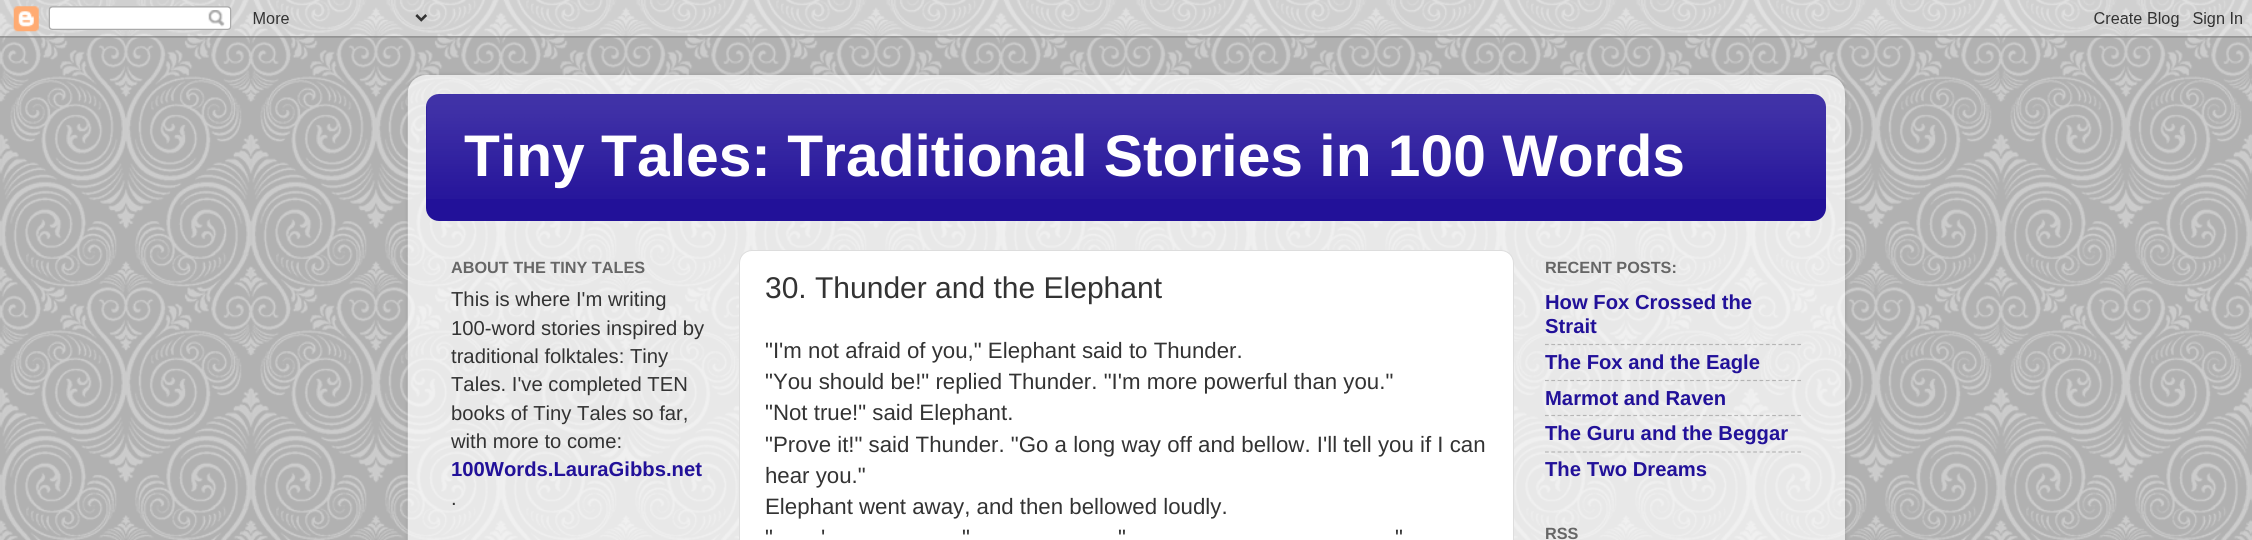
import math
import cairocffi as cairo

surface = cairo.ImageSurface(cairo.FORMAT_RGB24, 2252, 540)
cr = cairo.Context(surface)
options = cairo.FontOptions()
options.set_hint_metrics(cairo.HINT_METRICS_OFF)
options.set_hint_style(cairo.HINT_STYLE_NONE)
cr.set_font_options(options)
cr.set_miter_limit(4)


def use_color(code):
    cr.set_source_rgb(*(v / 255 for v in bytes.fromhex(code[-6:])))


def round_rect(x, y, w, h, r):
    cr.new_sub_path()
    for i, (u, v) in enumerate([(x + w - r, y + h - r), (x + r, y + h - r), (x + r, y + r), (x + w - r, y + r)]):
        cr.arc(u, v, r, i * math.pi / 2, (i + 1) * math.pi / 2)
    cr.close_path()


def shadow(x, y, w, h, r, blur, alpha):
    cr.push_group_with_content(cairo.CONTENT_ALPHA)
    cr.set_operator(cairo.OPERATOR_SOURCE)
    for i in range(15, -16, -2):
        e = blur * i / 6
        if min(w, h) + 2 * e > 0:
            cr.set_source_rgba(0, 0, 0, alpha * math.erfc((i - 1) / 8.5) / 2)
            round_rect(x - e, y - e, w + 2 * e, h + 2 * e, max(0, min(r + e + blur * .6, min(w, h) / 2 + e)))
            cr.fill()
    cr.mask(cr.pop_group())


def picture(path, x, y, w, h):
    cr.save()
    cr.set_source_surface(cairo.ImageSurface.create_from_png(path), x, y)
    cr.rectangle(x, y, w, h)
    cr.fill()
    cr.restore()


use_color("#dddddd")
cr.paint()
picture("img1.png", 0, 0, 2252, 540)
picture("img2.png", 0, 0, 2252, 38)
cr.save()
cr.set_fill_rule(cairo.FILL_RULE_EVEN_ODD)
cr.new_path()
cr.move_to(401, 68)
cr.line_to(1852, 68)
cr.line_to(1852, 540)
cr.line_to(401, 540)
cr.close_path()
cr.move_to(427, 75)
cr.line_to(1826, 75)
cr.curve_to(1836.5, 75, 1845, 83.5, 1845, 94)
cr.line_to(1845, 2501)
cr.curve_to(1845, 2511.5, 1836.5, 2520, 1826, 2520)
cr.line_to(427, 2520)
cr.curve_to(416.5, 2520, 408, 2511.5, 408, 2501)
cr.line_to(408, 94)
cr.curve_to(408, 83.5, 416.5, 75, 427, 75)
cr.close_path()
cr.clip()
use_color("#000000")
shadow(408, 75, 1437, 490, 19, 2, 0.15)
cr.restore()
picture("img3.png", 407, 75, 1438, 465)
use_color("#221199")
round_rect(426, 94, 1400, 127, 13)
cr.fill()
picture("img4.png", 426, 94, 1400, 105)
cr.select_font_face("Liberation Sans", cairo.FONT_SLANT_NORMAL, cairo.FONT_WEIGHT_BOLD)
cr.set_font_size(58.75)
use_color("#ffffff")
cr.move_to(464, 176)
cr.show_text("Tiny Tales: Traditional Stories in 100 Words")
cr.set_font_size(16.25)
use_color("#666666")
cr.move_to(451, 273)
cr.show_text("ABOUT THE TINY TALES")
cr.select_font_face("Liberation Sans")
cr.set_font_size(20.25)
use_color("#333333")
cr.move_to(451, 306)
cr.show_text("This is where I'm writing")
cr.move_to(451, 335)
cr.show_text("100-word stories inspired by")
cr.move_to(451, 363)
cr.show_text("traditional folktales: Tiny")
cr.move_to(451, 391)
cr.show_text("Tales. I've completed TEN")
cr.move_to(451, 420)
cr.show_text("books of Tiny Tales so far,")
cr.move_to(451, 448)
cr.show_text("with more to come:")
cr.select_font_face("Liberation Sans", cairo.FONT_SLANT_NORMAL, cairo.FONT_WEIGHT_BOLD)
use_color("#221199")
cr.move_to(451, 476)
cr.show_text("100Words.LauraGibbs.net")
cr.select_font_face("Liberation Sans")
use_color("#333333")
cr.move_to(451, 505)
cr.show_text(".")
use_color("#ffffff")
round_rect(739.5, 250.5, 774, 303, 12.5)
cr.fill_preserve()
use_color("#dddddd")
cr.set_line_width(1)
cr.stroke()
cr.set_font_size(30)
use_color("#333333")
cr.move_to(765, 298)
cr.show_text("30. Thunder and the Elephant")
cr.set_font_size(22.25)
cr.move_to(765, 358)
cr.show_text("\"I'm not afraid of you,\" Elephant said to Thunder.")
cr.move_to(765, 389)
cr.show_text("\"You should be!\" replied Thunder. \"I'm more powerful than you.\"")
cr.move_to(765, 420)
cr.show_text("\"Not true!\" said Elephant.")
cr.move_to(765, 452)
cr.show_text("\"Prove it!\" said Thunder. \"Go a long way off and bellow. I'll tell you if I can")
cr.move_to(765, 483)
cr.show_text("hear you.\"")
cr.move_to(765, 514)
cr.show_text("Elephant went away, and then bellowed loudly.")
cr.move_to(765, 545)
cr.show_text("\"")
cr.move_to(821, 545)
cr.show_text("'")
cr.move_to(962, 545)
cr.show_text("\"")
cr.move_to(1118, 545)
cr.show_text("\"")
cr.move_to(1395, 545)
cr.show_text("\"")
cr.select_font_face("Liberation Sans", cairo.FONT_SLANT_NORMAL, cairo.FONT_WEIGHT_BOLD)
cr.set_font_size(16.25)
use_color("#666666")
cr.move_to(1545, 273)
cr.show_text("RECENT POSTS:")
cr.set_font_size(20.25)
use_color("#221199")
cr.move_to(1545, 309)
cr.show_text("How Fox Crossed the")
cr.move_to(1545, 333)
cr.show_text("Strait")
cr.new_path()
cr.move_to(1545, 344.5)
cr.line_to(1801, 344.5)
cr.set_source_rgba(0.502, 0.502, 0.502, 0.5)
cr.set_line_width(1.2)
cr.set_dash([3.75, 2.56])
cr.stroke()
use_color("#221199")
cr.move_to(1545, 369)
cr.show_text("The Fox and the Eagle")
cr.new_path()
cr.move_to(1545, 380.5)
cr.line_to(1801, 380.5)
cr.set_source_rgba(0.502, 0.502, 0.502, 0.5)
cr.stroke()
use_color("#221199")
cr.move_to(1545, 405)
cr.show_text("Marmot and Raven")
cr.new_path()
cr.move_to(1545, 415.5)
cr.line_to(1801, 415.5)
cr.set_source_rgba(0.502, 0.502, 0.502, 0.5)
cr.stroke()
use_color("#221199")
cr.move_to(1545, 440)
cr.show_text("The Guru and the Beggar")
cr.new_path()
cr.move_to(1545, 452)
cr.line_to(1801, 452)
cr.set_source_rgba(0.502, 0.502, 0.502, 0.5)
cr.stroke()
use_color("#221199")
cr.move_to(1545, 476)
cr.show_text("The Two Dreams")
cr.set_font_size(16.25)
use_color("#666666")
cr.move_to(1545, 539)
cr.show_text("RSS")
surface.write_to_png("result.png")
